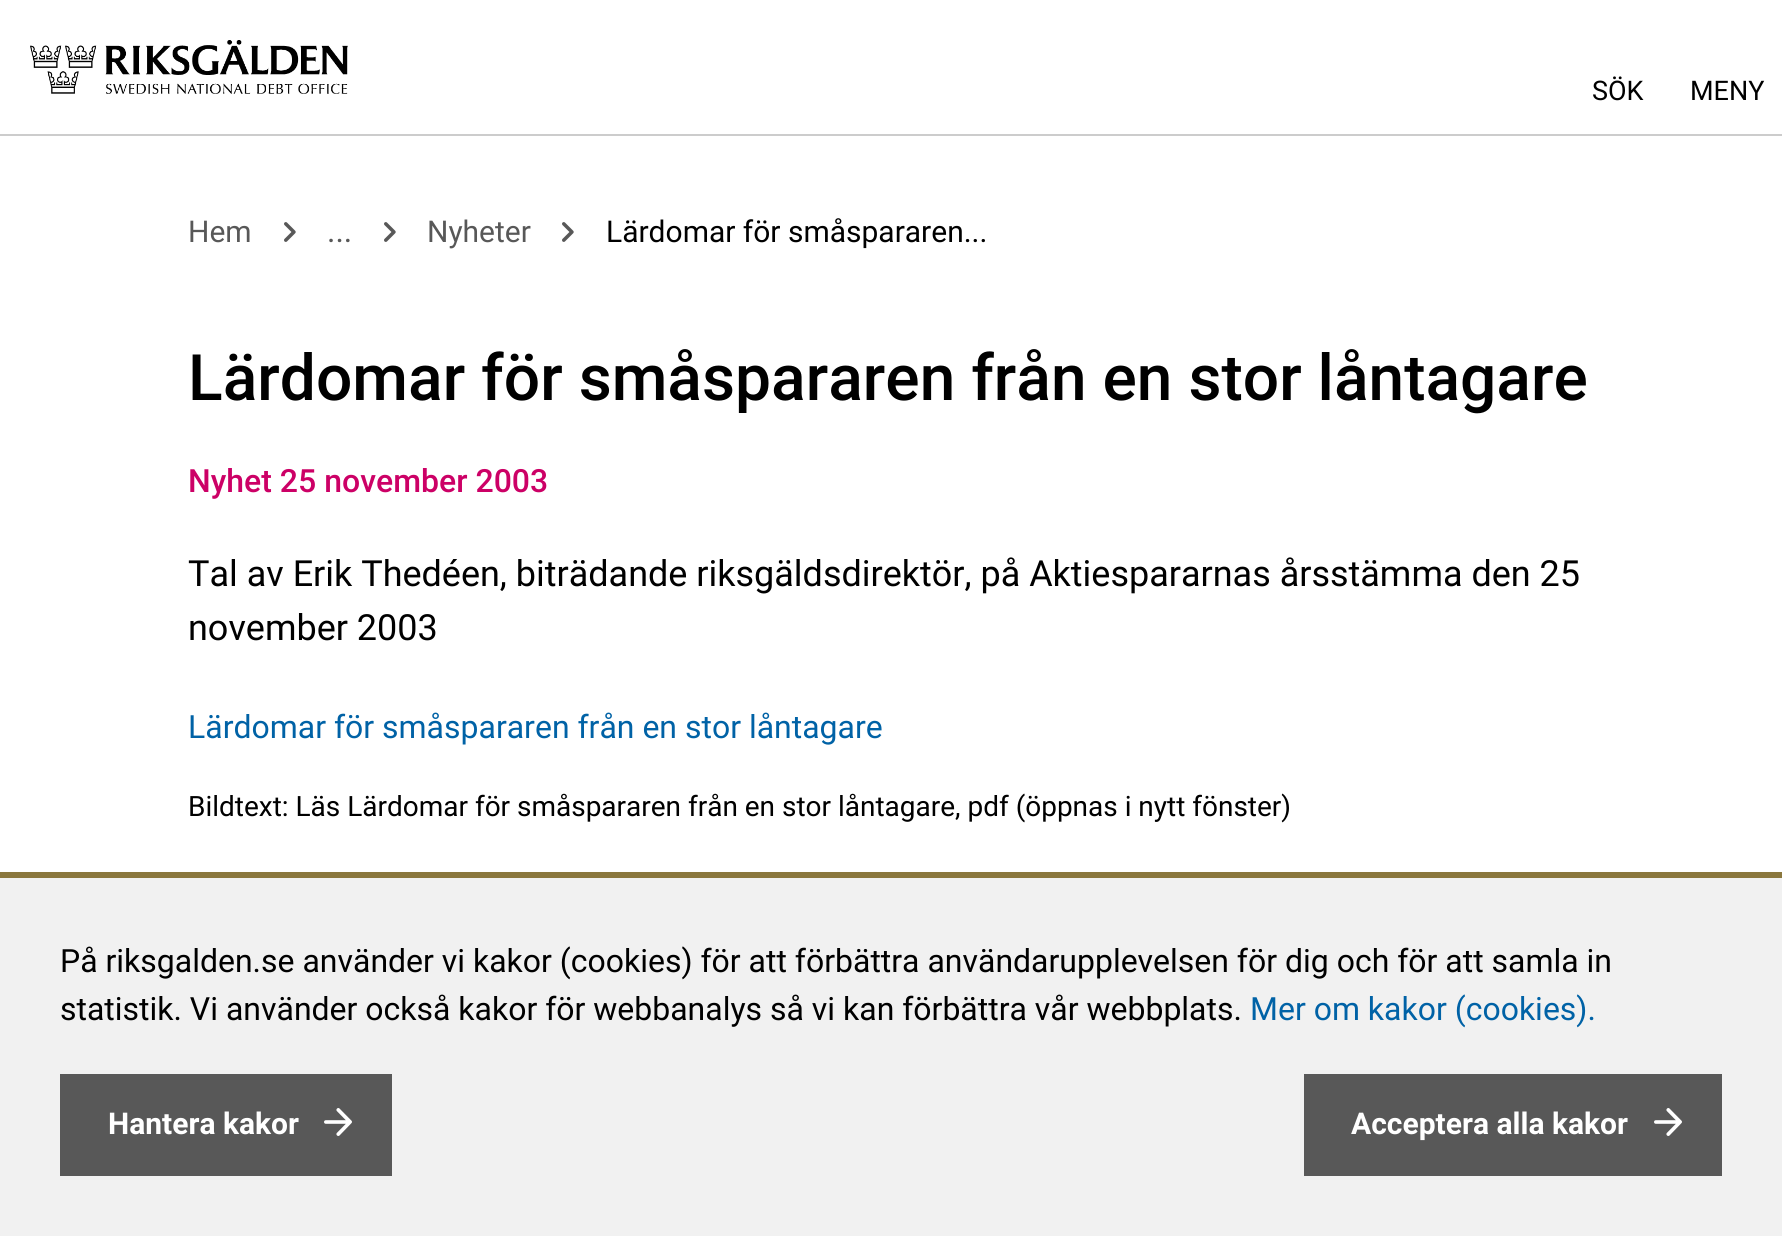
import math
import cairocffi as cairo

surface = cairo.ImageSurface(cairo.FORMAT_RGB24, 1782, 1236)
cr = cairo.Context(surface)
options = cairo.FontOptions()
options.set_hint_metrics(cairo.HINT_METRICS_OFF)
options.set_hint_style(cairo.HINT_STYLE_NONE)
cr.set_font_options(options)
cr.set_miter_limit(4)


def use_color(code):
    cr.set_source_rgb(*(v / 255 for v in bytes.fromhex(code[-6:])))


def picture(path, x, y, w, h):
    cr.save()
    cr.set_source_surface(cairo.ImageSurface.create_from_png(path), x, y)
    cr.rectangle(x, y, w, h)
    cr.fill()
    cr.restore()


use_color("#ffffff")
cr.paint()
use_color("#cccccc")
cr.rectangle(0, 134, 1782, 2)
cr.fill()
picture("img1.png", 30, 40, 318, 54)
cr.select_font_face("Roboto")
cr.set_font_size(27)
use_color("#000000")
cr.move_to(1592, 100)
cr.show_text("SÖK")
cr.move_to(1690, 100)
cr.show_text("MENY")
cr.set_font_size(30)
use_color("#585858")
cr.move_to(188, 242)
cr.show_text("Hem")
picture("img2.png", 284, 222, 12, 20)
cr.set_font_size(32)
cr.move_to(327, 242)
cr.show_text("...")
picture("img2.png", 384, 222, 12, 20)
cr.set_font_size(30)
cr.move_to(427, 242)
cr.show_text("Nyheter")
picture("img2.png", 562, 222, 12, 20)
use_color("#000000")
cr.move_to(606, 242)
cr.show_text("Lärdomar för småspararen...")
cr.select_font_face("Roboto Medium")
cr.set_font_size(64)
cr.move_to(188, 400)
cr.show_text("Lärdomar för småspararen från en stor låntagare")
cr.set_font_size(32)
use_color("#cc0066")
cr.move_to(188, 492)
cr.show_text("Nyhet 25 november 2003")
cr.select_font_face("Roboto")
cr.set_font_size(36)
use_color("#000000")
cr.move_to(188, 586)
cr.show_text("Tal av Erik Thedéen, biträdande riksgäldsdirektör, på Aktiespararnas årsstämma den 25")
cr.move_to(188, 640)
cr.show_text("november 2003")
cr.set_font_size(32)
use_color("#0062a6")
cr.move_to(188, 738)
cr.show_text("Lärdomar för småspararen från en stor låntagare")
cr.set_font_size(28)
use_color("#000000")
cr.move_to(188, 816)
cr.show_text("Bildtext: Läs Lärdomar för småspararen från en stor låntagare, pdf (öppnas i nytt fönster)")
use_color("#f1f1f1")
cr.rectangle(0, 878, 1782, 358)
cr.fill()
use_color("#8a773d")
cr.rectangle(0, 872, 1782, 6)
cr.fill()
cr.set_font_size(32)
use_color("#000000")
cr.move_to(60, 972)
cr.show_text("På riksgalden.se använder vi kakor (cookies) för att förbättra användarupplevelsen för dig och för att samla in")
cr.move_to(60, 1020)
cr.show_text("statistik. Vi använder också kakor för webbanalys så vi kan förbättra vår webbplats.")
use_color("#0062a6")
cr.move_to(1250, 1020)
cr.show_text("Mer om kakor (cookies).")
use_color("#585858")
cr.rectangle(60, 1074, 332, 102)
cr.fill()
cr.select_font_face("Roboto", cairo.FONT_SLANT_NORMAL, cairo.FONT_WEIGHT_BOLD)
cr.set_font_size(30)
use_color("#ffffff")
cr.move_to(108, 1134)
cr.show_text("Hantera kakor")
picture("img3.png", 324, 1108, 28, 28)
use_color("#585858")
cr.rectangle(1304, 1074, 418, 102)
cr.fill()
use_color("#ffffff")
cr.move_to(1351, 1134)
cr.show_text("Acceptera alla kakor")
picture("img3.png", 1654, 1108, 28, 28)
surface.write_to_png("result.png")
